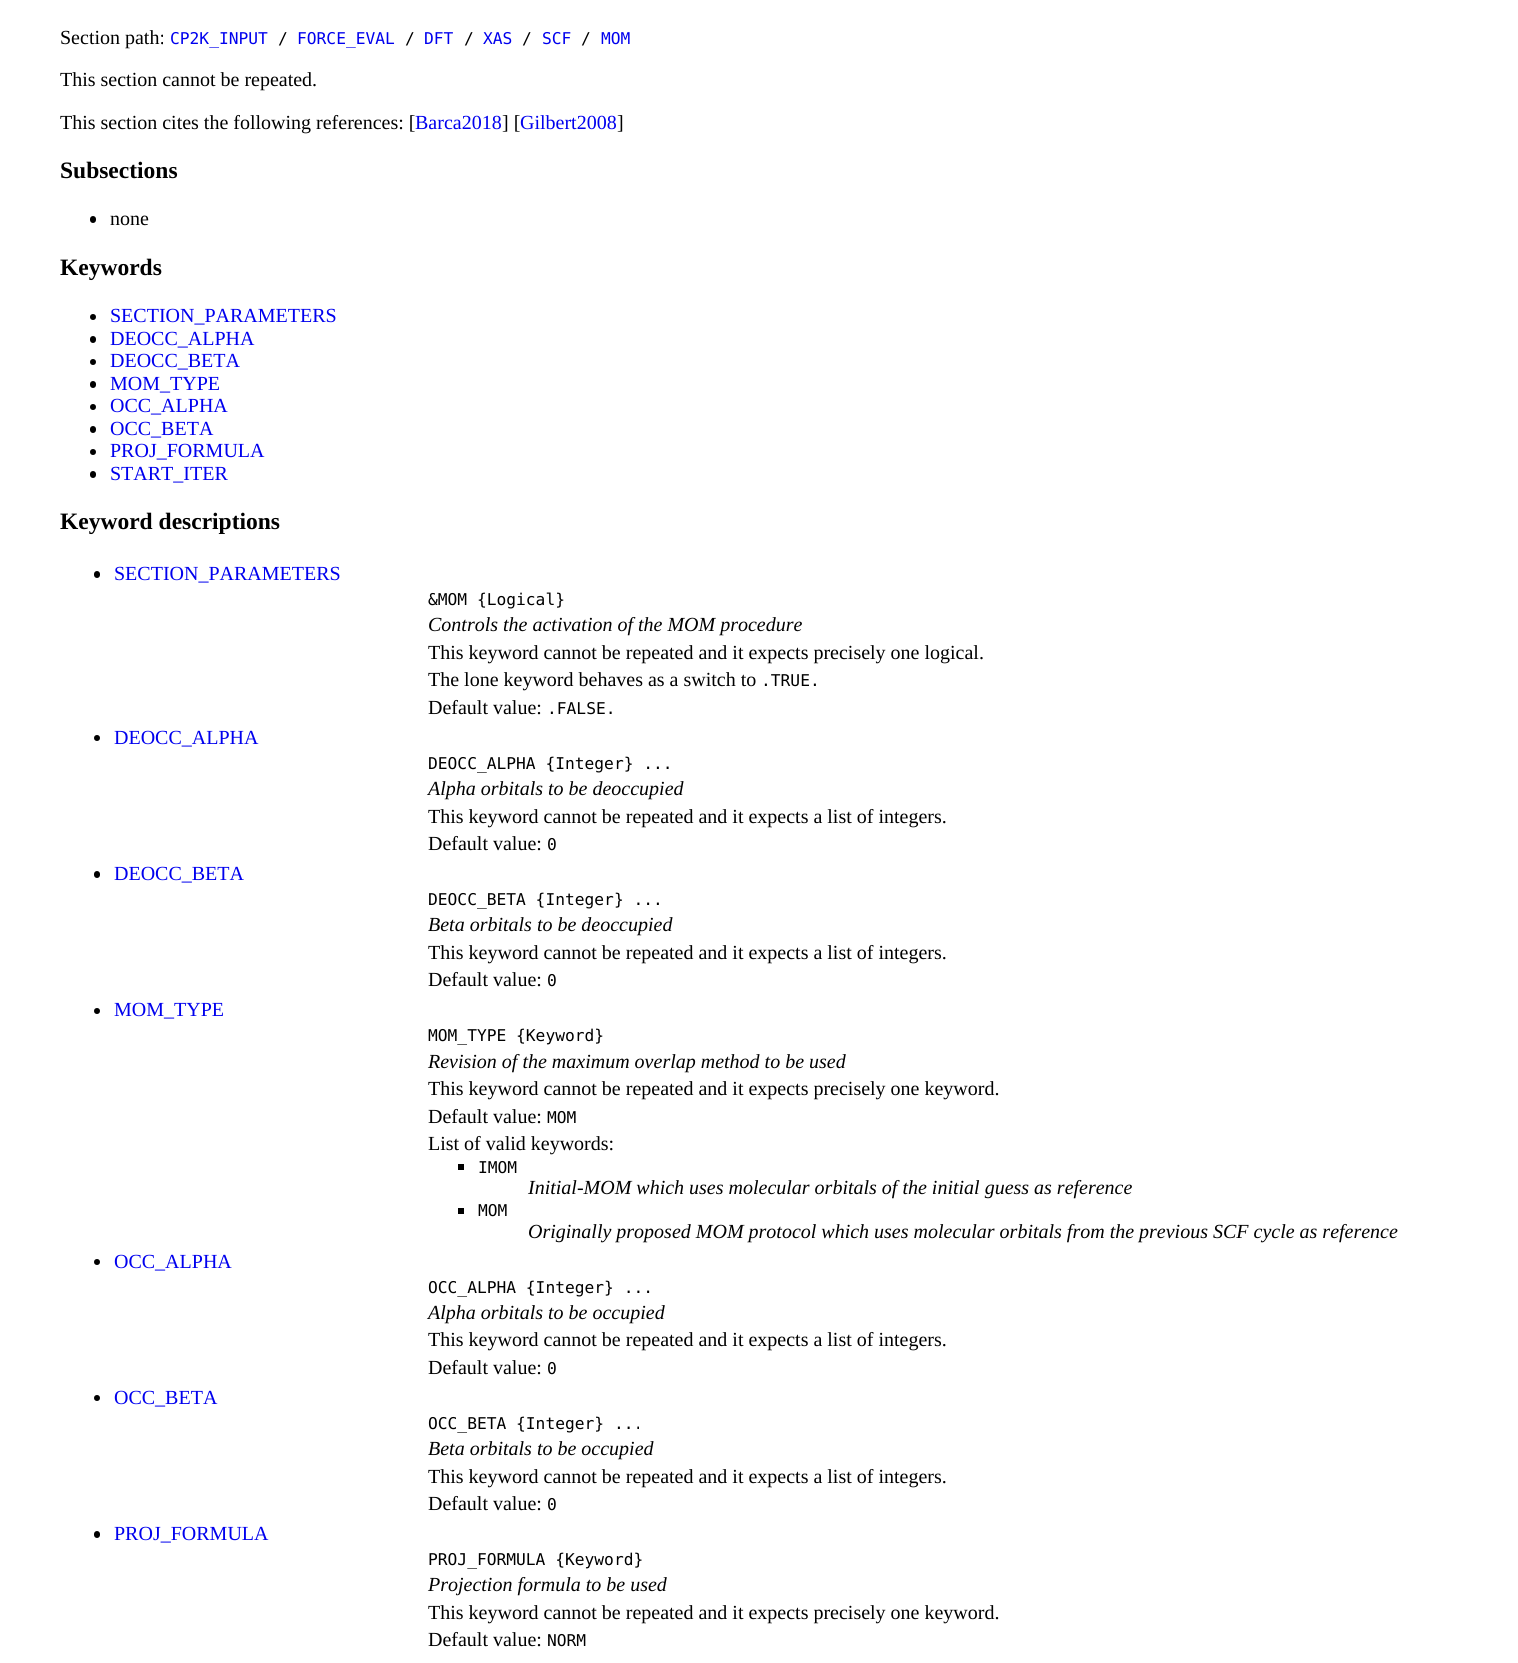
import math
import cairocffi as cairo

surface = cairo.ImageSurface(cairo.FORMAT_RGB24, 1518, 1663)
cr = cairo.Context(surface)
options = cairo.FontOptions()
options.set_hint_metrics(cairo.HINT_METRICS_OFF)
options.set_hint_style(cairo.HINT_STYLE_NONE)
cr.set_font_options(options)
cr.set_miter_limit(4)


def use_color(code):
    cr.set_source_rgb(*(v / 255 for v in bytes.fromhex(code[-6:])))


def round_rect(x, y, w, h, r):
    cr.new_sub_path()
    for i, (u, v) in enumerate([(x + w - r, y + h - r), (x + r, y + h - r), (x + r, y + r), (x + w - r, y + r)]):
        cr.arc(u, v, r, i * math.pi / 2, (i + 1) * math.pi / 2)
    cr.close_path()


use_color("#ffffff")
cr.paint()
cr.select_font_face("Liberation Serif")
cr.set_font_size(20)
use_color("#000000")
cr.move_to(60, 44)
cr.show_text("Section path:")
cr.select_font_face("DejaVu Sans Mono")
cr.set_font_size(16.25)
use_color("#0000ee")
cr.move_to(170, 44)
cr.show_text("CP2K_INPUT")
use_color("#000000")
cr.move_to(278, 44)
cr.show_text("/")
use_color("#0000ee")
cr.move_to(297, 44)
cr.show_text("FORCE_EVAL")
use_color("#000000")
cr.move_to(405, 44)
cr.show_text("/")
use_color("#0000ee")
cr.move_to(424, 44)
cr.show_text("DFT")
use_color("#000000")
cr.move_to(464, 44)
cr.show_text("/")
use_color("#0000ee")
cr.move_to(483, 44)
cr.show_text("XAS")
use_color("#000000")
cr.move_to(522, 44)
cr.show_text("/")
use_color("#0000ee")
cr.move_to(542, 44)
cr.show_text("SCF")
use_color("#000000")
cr.move_to(581, 44)
cr.show_text("/")
use_color("#0000ee")
cr.move_to(601, 44)
cr.show_text("MOM")
cr.select_font_face("Liberation Serif")
cr.set_font_size(20)
use_color("#000000")
cr.move_to(60, 86)
cr.show_text("This section cannot be repeated.")
cr.move_to(60, 129)
cr.show_text("This section cites the following references: [")
use_color("#0000ee")
cr.move_to(415, 129)
cr.show_text("Barca2018")
use_color("#000000")
cr.move_to(502, 129)
cr.show_text("] [")
use_color("#0000ee")
cr.move_to(520, 129)
cr.show_text("Gilbert2008")
use_color("#000000")
cr.move_to(617, 129)
cr.show_text("]")
cr.select_font_face("Liberation Serif", cairo.FONT_SLANT_NORMAL, cairo.FONT_WEIGHT_BOLD)
cr.set_font_size(23.5)
cr.move_to(60, 178)
cr.show_text("Subsections")
round_rect(90, 216, 6, 7, 3)
cr.fill()
cr.select_font_face("Liberation Serif")
cr.set_font_size(20)
cr.move_to(110, 225)
cr.show_text("none")
cr.select_font_face("Liberation Serif", cairo.FONT_SLANT_NORMAL, cairo.FONT_WEIGHT_BOLD)
cr.set_font_size(23.5)
cr.move_to(60, 275)
cr.show_text("Keywords")
cr.new_path()
cr.arc(93, 317, 3, 0, 2 * math.pi)
cr.fill()
cr.select_font_face("Liberation Serif")
cr.set_font_size(20)
use_color("#0000ee")
cr.move_to(110, 322)
cr.show_text("SECTION_PARAMETERS")
use_color("#000000")
round_rect(90, 336, 6, 7, 3)
cr.fill()
use_color("#0000ee")
cr.move_to(110, 345)
cr.show_text("DEOCC_ALPHA")
use_color("#000000")
cr.new_path()
cr.arc(93, 362, 3, 0, 2 * math.pi)
cr.fill()
use_color("#0000ee")
cr.move_to(110, 367)
cr.show_text("DEOCC_BETA")
use_color("#000000")
round_rect(90, 381, 6, 7, 3)
cr.fill()
use_color("#0000ee")
cr.move_to(110, 390)
cr.show_text("MOM_TYPE")
use_color("#000000")
cr.new_path()
cr.arc(93, 407, 3, 0, 2 * math.pi)
cr.fill()
use_color("#0000ee")
cr.move_to(110, 412)
cr.show_text("OCC_ALPHA")
use_color("#000000")
round_rect(90, 426, 6, 7, 3)
cr.fill()
use_color("#0000ee")
cr.move_to(110, 435)
cr.show_text("OCC_BETA")
use_color("#000000")
cr.new_path()
cr.arc(93, 452, 3, 0, 2 * math.pi)
cr.fill()
use_color("#0000ee")
cr.move_to(110, 457)
cr.show_text("PROJ_FORMULA")
use_color("#000000")
round_rect(90, 471, 6, 7, 3)
cr.fill()
use_color("#0000ee")
cr.move_to(110, 480)
cr.show_text("START_ITER")
cr.select_font_face("Liberation Serif", cairo.FONT_SLANT_NORMAL, cairo.FONT_WEIGHT_BOLD)
cr.set_font_size(23.5)
use_color("#000000")
cr.move_to(60, 529)
cr.show_text("Keyword descriptions")
round_rect(94, 571, 6, 7, 3)
cr.fill()
cr.select_font_face("Liberation Serif")
cr.set_font_size(20)
use_color("#0000ee")
cr.move_to(114, 580)
cr.show_text("SECTION_PARAMETERS")
cr.select_font_face("DejaVu Sans Mono")
cr.set_font_size(16.25)
use_color("#000000")
cr.move_to(428, 605)
cr.show_text("&MOM {Logical}")
cr.select_font_face("Liberation Serif", cairo.FONT_SLANT_ITALIC)
cr.set_font_size(20)
cr.move_to(428, 631)
cr.show_text("Controls the activation of the MOM procedure")
cr.select_font_face("Liberation Serif")
cr.move_to(428, 659)
cr.show_text("This keyword cannot be repeated and it expects precisely one logical.")
cr.move_to(428, 686)
cr.show_text("The lone keyword behaves as a switch to")
cr.select_font_face("DejaVu Sans Mono")
cr.set_font_size(16.25)
cr.move_to(761, 686)
cr.show_text(".TRUE.")
cr.select_font_face("Liberation Serif")
cr.set_font_size(20)
cr.move_to(428, 714)
cr.show_text("Default value:")
cr.select_font_face("DejaVu Sans Mono")
cr.set_font_size(16.25)
cr.move_to(547, 714)
cr.show_text(".FALSE.")
cr.new_path()
cr.arc(97, 738, 3, 0, 2 * math.pi)
cr.fill()
cr.select_font_face("Liberation Serif")
cr.set_font_size(20)
use_color("#0000ee")
cr.move_to(114, 744)
cr.show_text("DEOCC_ALPHA")
cr.select_font_face("DejaVu Sans Mono")
cr.set_font_size(16.25)
use_color("#000000")
cr.move_to(428, 769)
cr.show_text("DEOCC_ALPHA {Integer} ...")
cr.select_font_face("Liberation Serif", cairo.FONT_SLANT_ITALIC)
cr.set_font_size(20)
cr.move_to(428, 795)
cr.show_text("Alpha orbitals to be deoccupied")
cr.select_font_face("Liberation Serif")
cr.move_to(428, 823)
cr.show_text("This keyword cannot be repeated and it expects a list of integers.")
cr.move_to(428, 850)
cr.show_text("Default value:")
cr.select_font_face("DejaVu Sans Mono")
cr.set_font_size(16.25)
cr.move_to(547, 850)
cr.show_text("0")
round_rect(94, 871, 6, 7, 3)
cr.fill()
cr.select_font_face("Liberation Serif")
cr.set_font_size(20)
use_color("#0000ee")
cr.move_to(114, 880)
cr.show_text("DEOCC_BETA")
cr.select_font_face("DejaVu Sans Mono")
cr.set_font_size(16.25)
use_color("#000000")
cr.move_to(428, 905)
cr.show_text("DEOCC_BETA {Integer} ...")
cr.select_font_face("Liberation Serif", cairo.FONT_SLANT_ITALIC)
cr.set_font_size(20)
cr.move_to(428, 931)
cr.show_text("Beta orbitals to be deoccupied")
cr.select_font_face("Liberation Serif")
cr.move_to(428, 959)
cr.show_text("This keyword cannot be repeated and it expects a list of integers.")
cr.move_to(428, 986)
cr.show_text("Default value:")
cr.select_font_face("DejaVu Sans Mono")
cr.set_font_size(16.25)
cr.move_to(547, 986)
cr.show_text("0")
cr.new_path()
cr.arc(97, 1011, 3, 0, 2 * math.pi)
cr.fill()
cr.select_font_face("Liberation Serif")
cr.set_font_size(20)
use_color("#0000ee")
cr.move_to(114, 1016)
cr.show_text("MOM_TYPE")
cr.select_font_face("DejaVu Sans Mono")
cr.set_font_size(16.25)
use_color("#000000")
cr.move_to(428, 1041)
cr.show_text("MOM_TYPE {Keyword}")
cr.select_font_face("Liberation Serif", cairo.FONT_SLANT_ITALIC)
cr.set_font_size(20)
cr.move_to(428, 1068)
cr.show_text("Revision of the maximum overlap method to be used")
cr.select_font_face("Liberation Serif")
cr.move_to(428, 1095)
cr.show_text("This keyword cannot be repeated and it expects precisely one keyword.")
cr.move_to(428, 1123)
cr.show_text("Default value:")
cr.select_font_face("DejaVu Sans Mono")
cr.set_font_size(16.25)
cr.move_to(547, 1123)
cr.show_text("MOM")
cr.select_font_face("Liberation Serif")
cr.set_font_size(20)
cr.move_to(428, 1150)
cr.show_text("List of valid keywords:")
cr.rectangle(458, 1164, 6, 6)
cr.fill()
cr.select_font_face("DejaVu Sans Mono")
cr.set_font_size(16.25)
cr.move_to(478, 1173)
cr.show_text("IMOM")
cr.select_font_face("Liberation Serif", cairo.FONT_SLANT_ITALIC)
cr.set_font_size(20)
cr.move_to(528, 1194)
cr.show_text("Initial-MOM which uses molecular orbitals of the initial guess as reference")
cr.rectangle(458, 1208, 6, 6)
cr.fill()
cr.select_font_face("DejaVu Sans Mono")
cr.set_font_size(16.25)
cr.move_to(478, 1216)
cr.show_text("MOM")
cr.select_font_face("Liberation Serif", cairo.FONT_SLANT_ITALIC)
cr.set_font_size(20)
cr.move_to(528, 1238)
cr.show_text("Originally proposed MOM protocol which uses molecular orbitals from the previous SCF cycle as reference")
cr.new_path()
cr.arc(97, 1262, 3, 0, 2 * math.pi)
cr.fill()
cr.select_font_face("Liberation Serif")
use_color("#0000ee")
cr.move_to(114, 1268)
cr.show_text("OCC_ALPHA")
cr.select_font_face("DejaVu Sans Mono")
cr.set_font_size(16.25)
use_color("#000000")
cr.move_to(428, 1293)
cr.show_text("OCC_ALPHA {Integer} ...")
cr.select_font_face("Liberation Serif", cairo.FONT_SLANT_ITALIC)
cr.set_font_size(20)
cr.move_to(428, 1319)
cr.show_text("Alpha orbitals to be occupied")
cr.select_font_face("Liberation Serif")
cr.move_to(428, 1346)
cr.show_text("This keyword cannot be repeated and it expects a list of integers.")
cr.move_to(428, 1374)
cr.show_text("Default value:")
cr.select_font_face("DejaVu Sans Mono")
cr.set_font_size(16.25)
cr.move_to(547, 1374)
cr.show_text("0")
cr.new_path()
cr.arc(97, 1398, 3, 0, 2 * math.pi)
cr.fill()
cr.select_font_face("Liberation Serif")
cr.set_font_size(20)
use_color("#0000ee")
cr.move_to(114, 1404)
cr.show_text("OCC_BETA")
cr.select_font_face("DejaVu Sans Mono")
cr.set_font_size(16.25)
use_color("#000000")
cr.move_to(428, 1429)
cr.show_text("OCC_BETA {Integer} ...")
cr.select_font_face("Liberation Serif", cairo.FONT_SLANT_ITALIC)
cr.set_font_size(20)
cr.move_to(428, 1455)
cr.show_text("Beta orbitals to be occupied")
cr.select_font_face("Liberation Serif")
cr.move_to(428, 1483)
cr.show_text("This keyword cannot be repeated and it expects a list of integers.")
cr.move_to(428, 1510)
cr.show_text("Default value:")
cr.select_font_face("DejaVu Sans Mono")
cr.set_font_size(16.25)
cr.move_to(547, 1510)
cr.show_text("0")
round_rect(94, 1531, 6, 7, 3)
cr.fill()
cr.select_font_face("Liberation Serif")
cr.set_font_size(20)
use_color("#0000ee")
cr.move_to(114, 1540)
cr.show_text("PROJ_FORMULA")
cr.select_font_face("DejaVu Sans Mono")
cr.set_font_size(16.25)
use_color("#000000")
cr.move_to(428, 1565)
cr.show_text("PROJ_FORMULA {Keyword}")
cr.select_font_face("Liberation Serif", cairo.FONT_SLANT_ITALIC)
cr.set_font_size(20)
cr.move_to(428, 1591)
cr.show_text("Projection formula to be used")
cr.select_font_face("Liberation Serif")
cr.move_to(428, 1619)
cr.show_text("This keyword cannot be repeated and it expects precisely one keyword.")
cr.move_to(428, 1646)
cr.show_text("Default value:")
cr.select_font_face("DejaVu Sans Mono")
cr.set_font_size(16.25)
cr.move_to(547, 1646)
cr.show_text("NORM")
surface.write_to_png("result.png")
